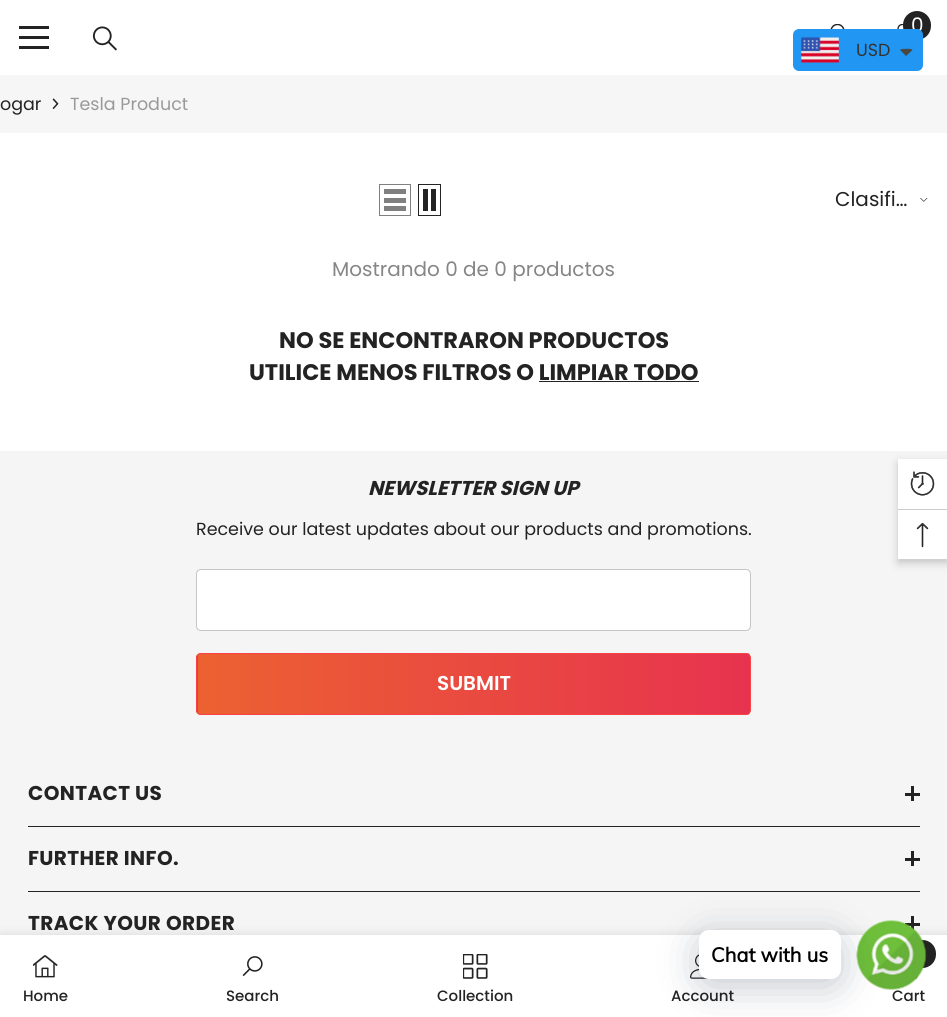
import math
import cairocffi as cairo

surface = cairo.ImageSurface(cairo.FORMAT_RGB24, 947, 1017)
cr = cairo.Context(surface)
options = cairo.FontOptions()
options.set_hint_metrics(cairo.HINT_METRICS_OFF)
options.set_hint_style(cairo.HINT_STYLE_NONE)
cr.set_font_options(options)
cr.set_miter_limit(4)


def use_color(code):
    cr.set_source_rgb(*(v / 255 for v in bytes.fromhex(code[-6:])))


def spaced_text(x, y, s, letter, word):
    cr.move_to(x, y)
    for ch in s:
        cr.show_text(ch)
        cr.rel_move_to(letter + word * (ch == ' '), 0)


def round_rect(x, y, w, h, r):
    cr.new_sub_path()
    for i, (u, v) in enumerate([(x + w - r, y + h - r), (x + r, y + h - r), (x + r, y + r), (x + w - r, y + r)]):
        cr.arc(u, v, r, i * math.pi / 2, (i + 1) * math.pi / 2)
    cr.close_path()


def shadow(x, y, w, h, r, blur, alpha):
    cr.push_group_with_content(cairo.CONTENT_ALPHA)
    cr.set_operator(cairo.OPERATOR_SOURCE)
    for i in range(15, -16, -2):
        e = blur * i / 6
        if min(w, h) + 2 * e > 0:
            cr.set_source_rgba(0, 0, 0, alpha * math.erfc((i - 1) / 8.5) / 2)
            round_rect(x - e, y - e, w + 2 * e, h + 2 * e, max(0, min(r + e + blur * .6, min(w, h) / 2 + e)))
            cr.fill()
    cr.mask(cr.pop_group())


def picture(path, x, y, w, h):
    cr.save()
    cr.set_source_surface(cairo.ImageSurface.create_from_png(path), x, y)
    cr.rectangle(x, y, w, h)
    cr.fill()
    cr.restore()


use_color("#ffffff")
cr.paint()
use_color("#232323")
cr.rectangle(19, 36, 30, 3)
cr.fill()
cr.rectangle(19, 26, 30, 3)
cr.fill()
cr.rectangle(19, 46, 30, 3)
cr.fill()
picture("img1.png", 92, 26, 25, 25)
picture("img2.png", 830, 24, 15, 5)
picture("img3.png", 897, 24, 7, 5)
round_rect(903, 11, 28, 29, 14)
cr.fill()
cr.select_font_face("Poppins")
cr.set_font_size(20)
use_color("#ffffff")
cr.move_to(911, 32)
cr.show_text("0")
use_color("#f6f6f6")
cr.rectangle(0, 75, 947, 58)
cr.fill()
cr.set_font_size(17.5)
use_color("#232323")
cr.move_to(0, 110)
cr.show_text("ogar")
picture("img4.png", 52, 98, 7, 11)
use_color("#999999")
cr.move_to(70, 110)
cr.show_text("Tesla Product")
cr.rectangle(379.5, 184.5, 31, 31)
use_color("#808080")
cr.set_line_width(1)
cr.stroke()
cr.rectangle(384, 206, 22, 5)
cr.fill()
cr.rectangle(384, 198, 22, 5)
cr.fill()
cr.rectangle(384, 189, 22, 5)
cr.fill()
cr.rectangle(418.5, 184.5, 22, 31)
use_color("#232323")
cr.stroke()
cr.rectangle(431, 189, 5, 22)
cr.fill()
cr.rectangle(423, 189, 5, 22)
cr.fill()
cr.set_font_size(20)
cr.move_to(835, 206)
cr.show_text("Clasifi…")
picture("img5.png", 920, 198, 8, 4)
use_color("#868686")
cr.move_to(332, 276)
cr.show_text("Mostrando 0 de 0 productos")
cr.select_font_face("Poppins", cairo.FONT_SLANT_NORMAL, cairo.FONT_WEIGHT_BOLD)
cr.set_font_size(22.5)
use_color("#232323")
cr.move_to(279, 348)
cr.show_text("NO SE ENCONTRARON PRODUCTOS")
cr.move_to(249, 380)
cr.show_text("UTILICE MENOS FILTROS O LIMPIAR TODO")
cr.rectangle(539, 381, 160, 1)
cr.fill()
use_color("#f5f5f5")
cr.rectangle(0, 451, 947, 484)
cr.fill()
cr.select_font_face("Poppins", cairo.FONT_SLANT_ITALIC, cairo.FONT_WEIGHT_BOLD)
cr.set_font_size(20)
use_color("#232323")
cr.move_to(368, 495)
cr.show_text("NEWSLETTER SIGN UP")
cr.select_font_face("Poppins")
cr.set_font_size(17.5)
cr.move_to(196, 535)
cr.show_text("Receive our latest updates about our products and promotions.")
use_color("#ffffff")
round_rect(196.5, 569.5, 554, 61, 4.5)
cr.fill_preserve()
use_color("#c6c6c6")
cr.stroke()
cr.save()
round_rect(196, 653, 555, 62, 5)
cr.clip()
gradient = cairo.LinearGradient(-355, 684, 198, 684)
gradient.add_color_stop_rgba(0, 0.925, 0.38, 0.192, 1)
gradient.add_color_stop_rgba(1, 0.906, 0.2, 0.31, 1)
cr.set_source(gradient)
cr.rectangle(196, 653, 2, 62)
cr.fill()
gradient = cairo.LinearGradient(198, 684, 750, 684)
gradient.add_color_stop_rgba(0, 0.925, 0.38, 0.192, 1)
gradient.add_color_stop_rgba(1, 0.906, 0.2, 0.31, 1)
cr.set_source(gradient)
cr.rectangle(198, 653, 552, 62)
cr.fill()
cr.restore()
round_rect(196.5, 653.5, 554, 61, 4.5)
use_color("#f84248")
cr.stroke()
cr.select_font_face("Poppins SemiBold")
cr.set_font_size(20)
use_color("#ffffff")
cr.move_to(437, 690)
cr.show_text("SUBMIT")
use_color("#232323")
cr.rectangle(28, 826, 892, 1)
cr.fill()
cr.select_font_face("Poppins", cairo.FONT_SLANT_NORMAL, cairo.FONT_WEIGHT_BOLD)
spaced_text(28, 800, "CONTACT US", 0.4, 0)
cr.rectangle(911, 786, 3, 15)
cr.fill()
cr.rectangle(905, 793, 15, 3)
cr.fill()
cr.rectangle(28, 891, 892, 1)
cr.fill()
spaced_text(28, 865, "FURTHER INFO.", 0.4, 0)
cr.rectangle(911, 851, 3, 15)
cr.fill()
cr.rectangle(905, 858, 15, 3)
cr.fill()
spaced_text(28, 930, "TRACK YOUR ORDER", 0.4, 0)
cr.rectangle(911, 916, 3, 15)
cr.fill()
cr.rectangle(905, 923, 15, 3)
cr.fill()
use_color("#000000")
shadow(0, 935, 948, 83, 0, 5.5, 0.12)
use_color("#ffffff")
cr.rectangle(0, 935, 947, 82)
cr.fill()
picture("img6.png", 33, 955, 25, 23)
cr.select_font_face("Poppins Medium")
cr.set_font_size(15)
use_color("#232323")
cr.move_to(23, 1001)
cr.show_text("Home")
picture("img7.png", 242, 956, 21, 21)
cr.move_to(226, 1001)
cr.show_text("Search")
picture("img8.png", 463, 954, 25, 25)
cr.move_to(437, 1001)
cr.show_text("Collection")
picture("img9.png", 690, 954, 19, 25)
cr.move_to(671, 1001)
cr.show_text("Account")
round_rect(909, 940, 27, 28, 13.5)
cr.fill()
picture("img10.png", 915, 975, 3, 4)
cr.move_to(892, 1001)
cr.show_text("Cart")
use_color("#2196f3")
round_rect(793, 29, 130, 42, 6)
cr.fill()
picture("img11.png", 801, 37, 38, 26)
cr.select_font_face("Poppins")
cr.set_font_size(17.5)
use_color("#333333")
cr.move_to(856, 56)
cr.show_text("USD")
use_color("#474942")
cr.new_path()
cr.move_to(902.5, 49)
cr.curve_to(905, 49, 910.5, 48, 912.5, 50)
cr.line_to(906, 56)
cr.line_to(900, 50)
cr.curve_to(900.5, 49.5, 901.5, 49, 902.5, 49)
cr.close_path()
cr.fill()
use_color("#000000")
shadow(898, 463, 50, 100, 0, 4.5, 0.2)
use_color("#ffffff")
cr.rectangle(898, 459, 49, 100)
cr.fill()
picture("img12.png", 910, 471, 25, 25)
use_color("#cccccc")
cr.rectangle(898, 509, 49, 1)
cr.fill()
picture("img13.png", 916, 523, 13, 25)
picture("img14.png", 856, 920, 71, 70)
use_color("#00122e")
shadow(699, 938, 142, 48, 10, 20, 0.24)
use_color("#ffffff")
round_rect(699, 930, 142, 49, 10)
cr.fill()
cr.select_font_face("Muli", cairo.FONT_SLANT_NORMAL, cairo.FONT_WEIGHT_BOLD)
cr.set_font_size(20)
use_color("#000000")
cr.move_to(711, 962)
cr.show_text("Chat with us")
surface.write_to_png("result.png")
